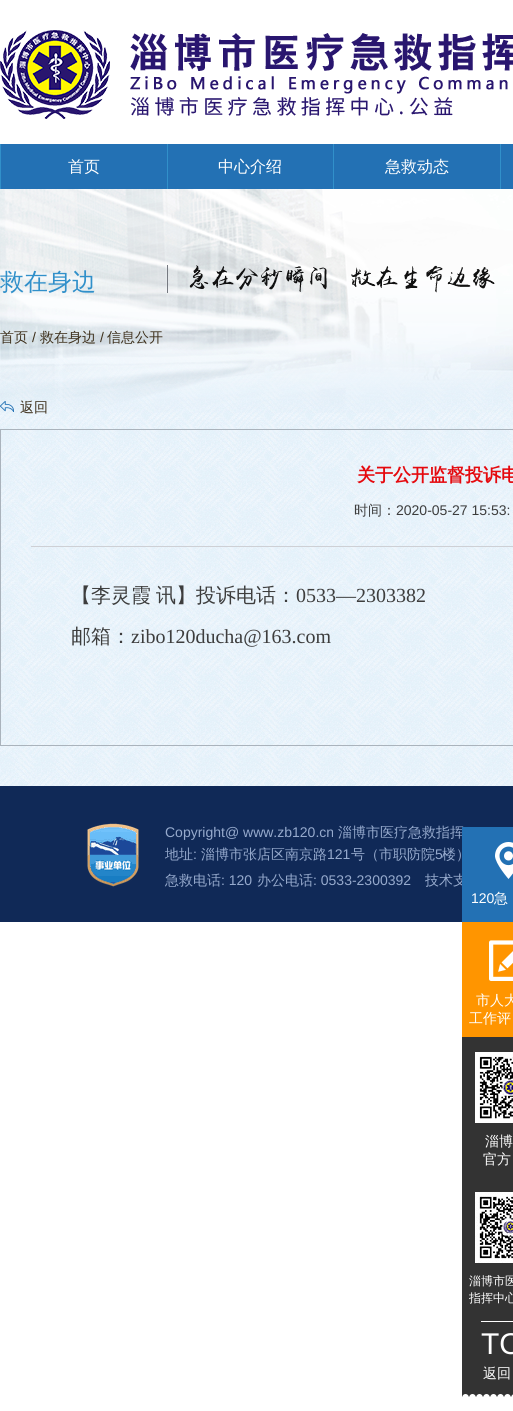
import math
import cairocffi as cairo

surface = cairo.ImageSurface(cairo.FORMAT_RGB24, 513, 1411)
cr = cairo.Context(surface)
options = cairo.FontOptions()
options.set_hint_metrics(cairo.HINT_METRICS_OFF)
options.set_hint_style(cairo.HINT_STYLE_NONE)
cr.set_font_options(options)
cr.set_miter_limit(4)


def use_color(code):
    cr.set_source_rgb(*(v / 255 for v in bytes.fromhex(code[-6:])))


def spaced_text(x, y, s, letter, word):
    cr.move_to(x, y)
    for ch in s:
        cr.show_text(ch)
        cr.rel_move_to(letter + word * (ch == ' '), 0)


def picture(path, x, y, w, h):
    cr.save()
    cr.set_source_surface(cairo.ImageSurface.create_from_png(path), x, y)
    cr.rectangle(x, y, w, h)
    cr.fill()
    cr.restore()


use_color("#ffffff")
cr.paint()
picture("img1.png", 0, 30, 110, 89)
picture("img2.png", 130, 33, 383, 83)
use_color("#2371b4")
cr.rectangle(1, 144, 512, 45)
cr.fill()
use_color("#3190ca")
cr.rectangle(0, 144, 1, 45)
cr.fill()
cr.rectangle(167, 144, 1, 45)
cr.fill()
cr.select_font_face("WenQuanYi Zen Hei Medium")
cr.set_font_size(16)
use_color("#ffffff")
cr.move_to(68, 172)
cr.show_text("首页")
use_color("#3190ca")
cr.rectangle(333, 144, 1, 45)
cr.fill()
use_color("#ffffff")
cr.move_to(218, 172)
cr.show_text("中心介绍")
use_color("#3190ca")
cr.rectangle(500, 144, 1, 45)
cr.fill()
use_color("#ffffff")
cr.move_to(385, 172)
cr.show_text("急救动态")
picture("img3.png", 0, 275, 513, 511)
picture("img4.png", 0, 189, 513, 224)
cr.set_font_size(24)
use_color("#3190ca")
cr.move_to(0, 290)
cr.show_text("救在身边")
cr.set_font_size(14)
use_color("#3d2f1b")
cr.move_to(0, 342)
cr.show_text("首页")
cr.select_font_face("Liberation Sans")
cr.move_to(32, 342)
cr.show_text("/")
cr.select_font_face("WenQuanYi Zen Hei Medium")
cr.move_to(40, 342)
cr.show_text("救在身边")
cr.select_font_face("Liberation Sans")
cr.move_to(100, 342)
cr.show_text("/")
cr.select_font_face("WenQuanYi Zen Hei Medium")
cr.move_to(107, 342)
cr.show_text("信息公开")
picture("img5.png", 0, 401, 14, 11)
cr.move_to(20, 412)
cr.show_text("返回")
cr.rectangle(0.5, 429.5, 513, 316)
use_color("#aab3bc")
cr.set_line_width(1)
cr.stroke()
cr.select_font_face("WenQuanYi Zen Hei", cairo.FONT_SLANT_NORMAL, cairo.FONT_WEIGHT_BOLD)
cr.set_font_size(18)
use_color("#e5090e")
cr.move_to(357, 481)
cr.show_text("关于公开监督投诉电")
use_color("#ced0d5")
cr.rectangle(31, 546, 482, 1)
cr.fill()
cr.select_font_face("WenQuanYi Zen Hei Medium")
cr.set_font_size(14)
use_color("#3d3d3d")
cr.move_to(354, 515)
cr.show_text("时间：")
cr.select_font_face("Liberation Sans")
cr.move_to(396, 515)
cr.show_text("2020-05-27 15:53:")
cr.select_font_face("WenQuanYi Zen Hei Medium")
cr.set_font_size(20)
spaced_text(71, 602, "【李灵霞 讯】投诉电话：", 0, -1)
cr.select_font_face("Liberation Serif")
cr.move_to(296, 602)
cr.show_text("0533—2303382")
cr.select_font_face("WenQuanYi Zen Hei Medium")
cr.move_to(71, 643)
cr.show_text("邮箱：")
cr.select_font_face("Liberation Serif")
cr.move_to(131, 643)
cr.show_text("zibo120ducha@163.com")
use_color("#102957")
cr.rectangle(0, 786, 513, 136)
cr.fill()
cr.select_font_face("WenQuanYi Zen Hei Medium")
cr.set_font_size(14)
use_color("#96aacd")
cr.move_to(338, 837)
cr.show_text("淄博市医疗急救指挥")
cr.move_to(425, 885)
cr.show_text("技术支")
use_color("#2371b4")
cr.rectangle(462, 827, 51, 95)
cr.fill()
picture("img6.png", 495, 842, 18, 37)
cr.select_font_face("Liberation Sans")
use_color("#ffffff")
cr.move_to(471, 903)
cr.show_text("120")
cr.select_font_face("WenQuanYi Zen Hei Medium")
cr.move_to(494, 903)
cr.show_text("急")
use_color("#ff9500")
cr.rectangle(462, 922, 51, 115)
cr.fill()
picture("img7.png", 489, 940, 24, 41)
use_color("#ffffff")
cr.move_to(476, 1005)
cr.show_text("市人大")
cr.move_to(469, 1023)
cr.show_text("工作评")
use_color("#333333")
cr.rectangle(462, 1037, 51, 280)
cr.fill()
picture("img8.png", 475, 1052, 38, 71)
use_color("#ffffff")
cr.move_to(485, 1146)
cr.show_text("淄博")
cr.move_to(483, 1164)
cr.show_text("官方")
picture("img9.png", 475, 1192, 38, 71)
cr.set_font_size(12)
cr.move_to(469, 1285)
cr.show_text("淄博市医")
cr.move_to(469, 1302)
cr.show_text("指挥中心")
picture("img10.png", 462, 1317, 51, 80)
cr.rectangle(481, 1321, 32, 1)
cr.fill()
cr.select_font_face("Liberation Sans")
cr.set_font_size(30)
cr.move_to(481, 1354)
cr.show_text("TO")
cr.select_font_face("WenQuanYi Zen Hei Medium")
cr.set_font_size(14)
cr.move_to(483, 1378)
cr.show_text("返回")
picture("img11.png", 87, 823, 52, 64)
cr.select_font_face("Liberation Sans")
use_color("#96aacd")
cr.move_to(165, 837)
cr.show_text("Copyright@ www.zb120.cn")
cr.select_font_face("WenQuanYi Zen Hei Medium")
cr.move_to(165, 859)
cr.show_text("地址")
cr.select_font_face("Liberation Sans")
cr.move_to(193, 859)
cr.show_text(":")
cr.select_font_face("WenQuanYi Zen Hei Medium")
cr.move_to(201, 859)
cr.show_text("淄博市张店区南京路")
cr.select_font_face("Liberation Sans")
cr.move_to(327, 859)
cr.show_text("121")
cr.select_font_face("WenQuanYi Zen Hei Medium")
cr.move_to(351, 859)
cr.show_text("号（市职防院")
cr.select_font_face("Liberation Sans")
cr.move_to(435, 859)
cr.show_text("5")
cr.select_font_face("WenQuanYi Zen Hei Medium")
cr.move_to(442, 859)
cr.show_text("楼）")
cr.move_to(165, 885)
cr.show_text("急救电话")
cr.select_font_face("Liberation Sans")
cr.move_to(221, 885)
cr.show_text(": 120")
cr.select_font_face("WenQuanYi Zen Hei Medium")
cr.move_to(257, 885)
cr.show_text("办公电话")
cr.select_font_face("Liberation Sans")
cr.move_to(313, 885)
cr.show_text(": 0533-2300392")
surface.write_to_png("result.png")
